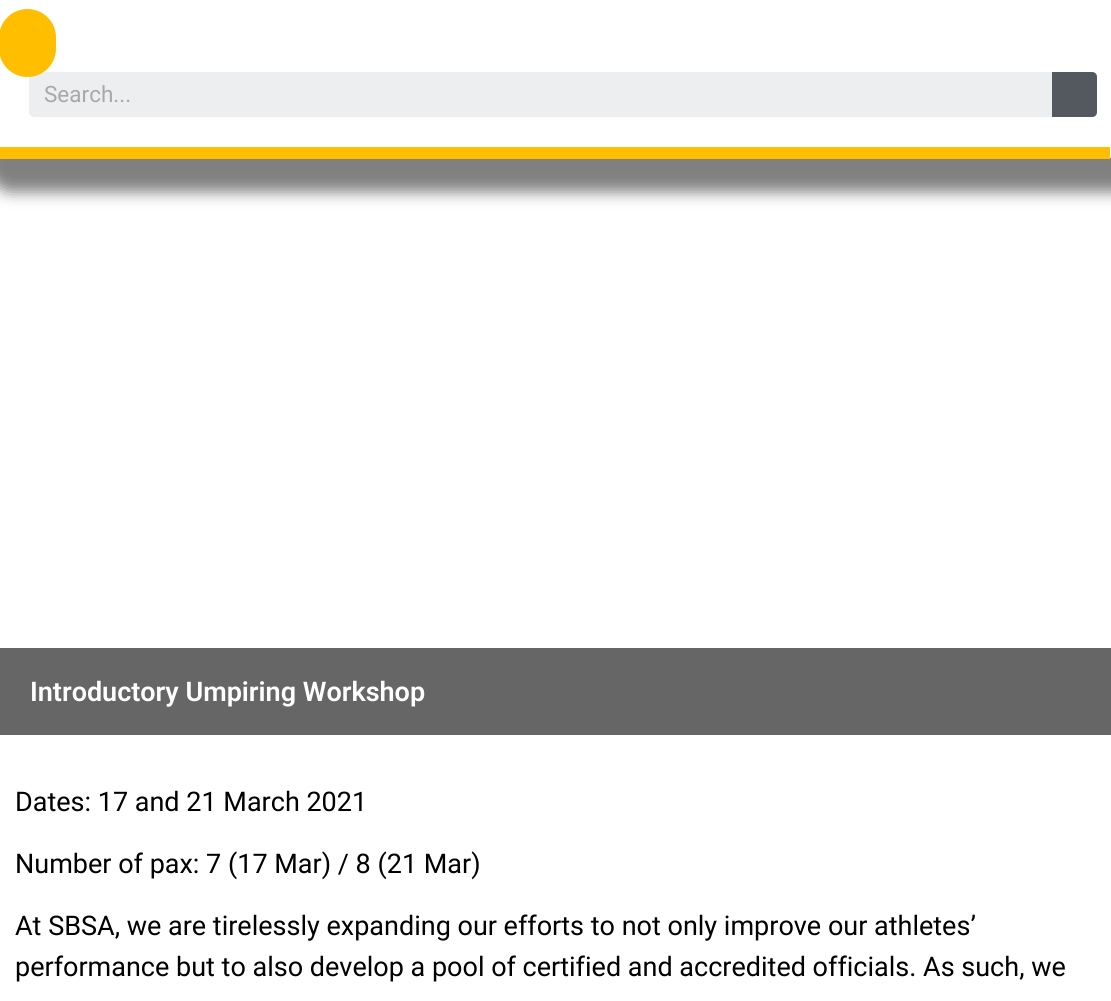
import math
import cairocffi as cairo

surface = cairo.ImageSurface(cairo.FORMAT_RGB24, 1111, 1001)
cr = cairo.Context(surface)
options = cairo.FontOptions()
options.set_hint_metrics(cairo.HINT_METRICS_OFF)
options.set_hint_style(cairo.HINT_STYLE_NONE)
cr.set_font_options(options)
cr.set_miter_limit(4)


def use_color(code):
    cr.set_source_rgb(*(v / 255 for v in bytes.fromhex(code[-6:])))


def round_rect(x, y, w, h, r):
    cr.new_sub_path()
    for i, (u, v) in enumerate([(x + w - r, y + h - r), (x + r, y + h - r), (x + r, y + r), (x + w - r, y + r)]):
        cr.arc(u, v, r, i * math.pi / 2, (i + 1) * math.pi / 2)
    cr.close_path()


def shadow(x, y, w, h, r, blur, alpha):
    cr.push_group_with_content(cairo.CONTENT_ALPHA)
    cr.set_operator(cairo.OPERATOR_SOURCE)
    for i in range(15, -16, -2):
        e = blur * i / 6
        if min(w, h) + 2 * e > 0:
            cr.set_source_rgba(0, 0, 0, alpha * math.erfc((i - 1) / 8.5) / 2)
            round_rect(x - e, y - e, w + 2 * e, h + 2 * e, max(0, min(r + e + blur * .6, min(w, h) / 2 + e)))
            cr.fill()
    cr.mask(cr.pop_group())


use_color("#ffffff")
cr.paint()
cr.save()
cr.set_fill_rule(cairo.FILL_RULE_EVEN_ODD)
cr.new_path()
cr.move_to(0, 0)
cr.line_to(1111, 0)
cr.line_to(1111, 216)
cr.line_to(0, 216)
cr.close_path()
cr.move_to(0, 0)
cr.line_to(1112, 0)
cr.line_to(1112, 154)
cr.curve_to(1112, 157, 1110, 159, 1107, 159)
cr.line_to(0, 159)
cr.close_path()
cr.clip()
use_color("#000000")
shadow(-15, -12, 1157, 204, 27, 7.5, 0.5)
cr.restore()
use_color("#ffbe00")
cr.rectangle(0, 147, 1110, 12)
cr.fill()
use_color("#eceeef")
round_rect(29, 72, 1068, 45, 5)
cr.fill()
use_color("#ffbe00")
round_rect(-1, 9, 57, 68, 28.5)
cr.fill()
cr.select_font_face("Roboto")
cr.set_font_size(22.5)
use_color("#a8a8a9")
cr.move_to(44, 102)
cr.show_text("Search...")
use_color("#54595f")
cr.new_path()
cr.move_to(1052, 72)
cr.line_to(1092, 72)
cr.curve_to(1095, 72, 1097, 74, 1097, 77)
cr.line_to(1097, 112)
cr.curve_to(1097, 115, 1095, 117, 1092, 117)
cr.line_to(1052, 117)
cr.close_path()
cr.fill()
use_color("#666666")
cr.rectangle(0, 648, 1111, 87)
cr.fill()
cr.select_font_face("Roboto SemiBold")
cr.set_font_size(27)
use_color("#ffffff")
cr.move_to(30, 701)
cr.show_text("Introductory Umpiring Workshop")
cr.select_font_face("Roboto")
use_color("#000000")
cr.move_to(15, 811)
cr.show_text("Dates: 17 and 21 March 2021")
cr.move_to(15, 873)
cr.show_text("Number of pax: 7 (17 Mar) / 8 (21 Mar)")
cr.move_to(15, 935)
cr.show_text("At SBSA, we are tirelessly expanding our efforts to not only improve our athletes’")
cr.move_to(15, 976)
cr.show_text("performance but to also develop a pool of certified and accredited officials. As such, we")
surface.write_to_png("result.png")
